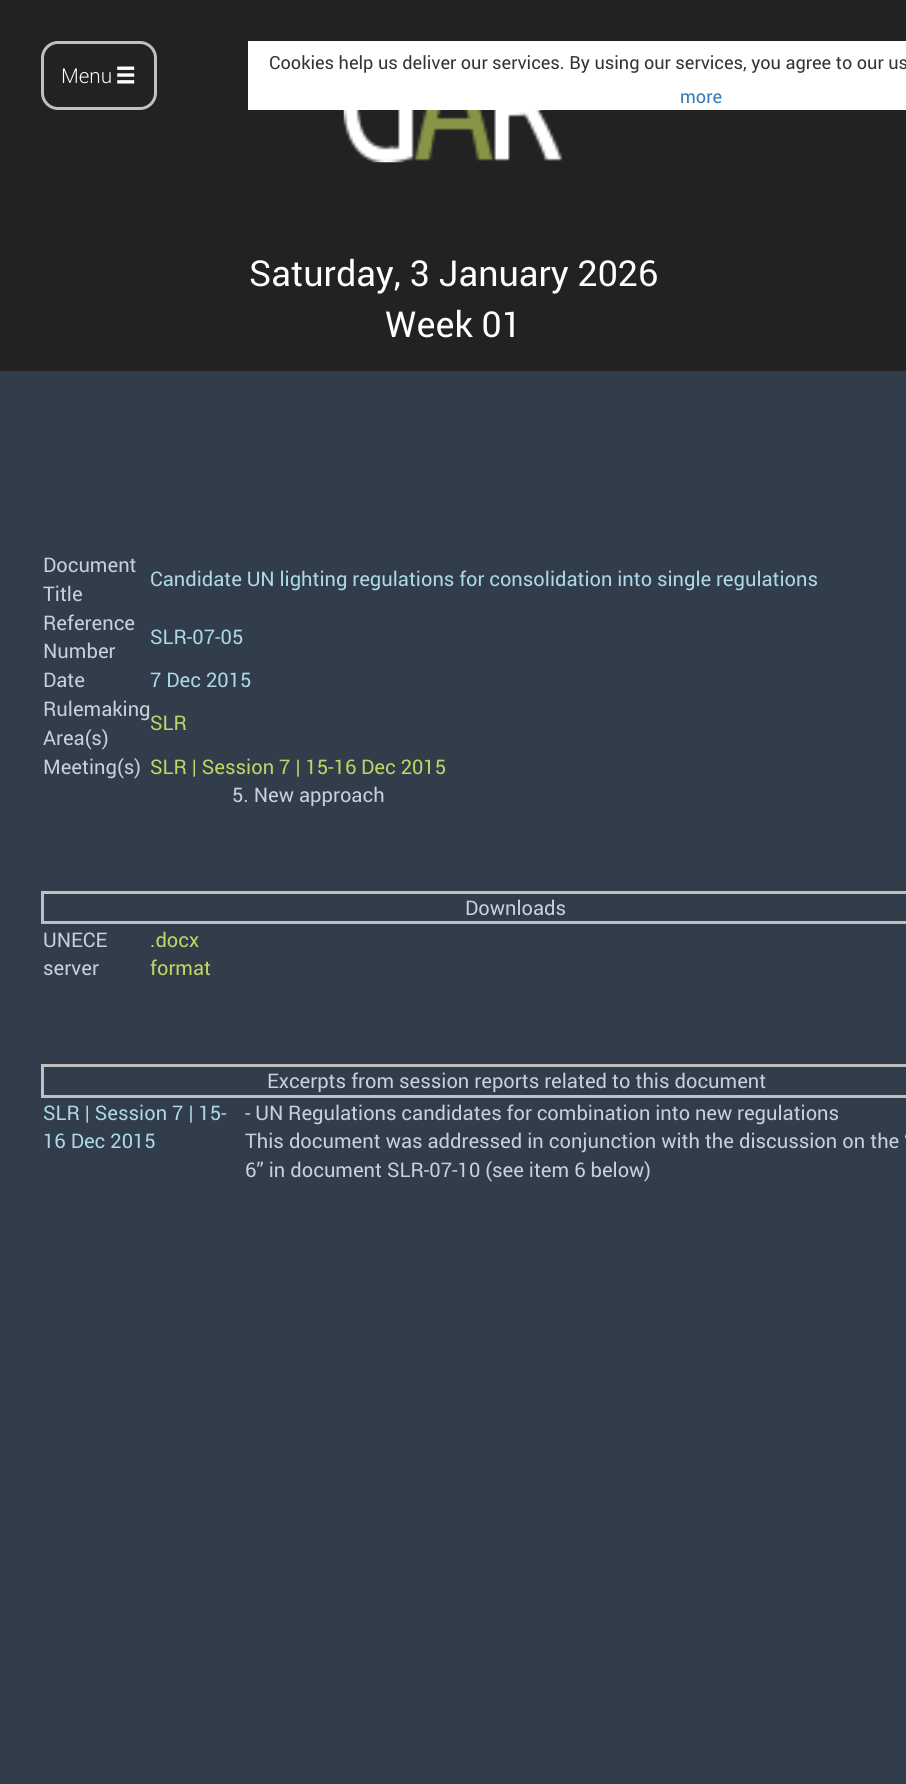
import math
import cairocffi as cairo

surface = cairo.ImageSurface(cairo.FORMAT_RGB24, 906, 1784)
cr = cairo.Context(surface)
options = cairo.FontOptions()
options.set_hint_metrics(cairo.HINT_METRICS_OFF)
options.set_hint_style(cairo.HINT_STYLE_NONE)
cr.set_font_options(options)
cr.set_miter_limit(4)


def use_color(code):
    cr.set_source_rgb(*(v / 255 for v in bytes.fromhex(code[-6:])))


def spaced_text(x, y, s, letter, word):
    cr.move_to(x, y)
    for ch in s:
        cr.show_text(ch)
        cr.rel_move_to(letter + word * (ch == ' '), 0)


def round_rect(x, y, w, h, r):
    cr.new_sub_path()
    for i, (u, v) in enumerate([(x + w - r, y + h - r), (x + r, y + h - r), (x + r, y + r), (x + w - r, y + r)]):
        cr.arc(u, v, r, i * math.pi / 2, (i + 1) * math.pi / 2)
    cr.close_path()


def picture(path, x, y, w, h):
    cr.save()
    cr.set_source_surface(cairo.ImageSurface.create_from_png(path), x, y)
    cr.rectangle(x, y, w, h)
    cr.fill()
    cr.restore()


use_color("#313d4b")
cr.paint()
use_color("#222222")
cr.rectangle(0, 0, 906, 371)
cr.fill()
round_rect(42.5, 42.5, 113, 66, 15.5)
use_color("#c0c0c0")
cr.set_line_width(3)
cr.stroke()
cr.select_font_face("Roboto Light")
cr.set_font_size(20.5)
use_color("#ffffff")
cr.move_to(61, 83)
cr.show_text("Menu")
picture("img1.png", 117, 66, 18, 18)
cr.rectangle(248, 41, 658, 69)
cr.fill()
cr.select_font_face("Roboto")
cr.set_font_size(18.15)
use_color("#333333")
cr.move_to(269, 69)
cr.show_text("Cookies help us deliver our services. By using our services, you agree to our us")
use_color("#337ab7")
cr.move_to(680, 103)
cr.show_text("more")
picture("img2.png", 343, 110, 219, 53)
cr.set_font_size(35.75)
use_color("#ffffff")
cr.move_to(249, 286)
cr.show_text("Saturday, 3 January 2026")
cr.move_to(385, 337)
cr.show_text("Week 01")
cr.set_font_size(20.15)
use_color("#c7d0db")
cr.move_to(43, 572)
cr.show_text("Document")
cr.move_to(43, 601)
cr.show_text("Title")
use_color("#add8e6")
spaced_text(150, 586, "Candidate UN lighting regulations for consolidation into single regulations", 0, -0.25)
use_color("#c7d0db")
cr.move_to(43, 630)
cr.show_text("Reference")
cr.move_to(43, 658)
cr.show_text("Number")
use_color("#add8e6")
cr.move_to(150, 644)
cr.show_text("SLR-07-05")
use_color("#c7d0db")
cr.move_to(43, 687)
cr.show_text("Date")
use_color("#add8e6")
cr.move_to(150, 687)
cr.show_text("7 Dec 2015")
use_color("#c7d0db")
cr.move_to(43, 716)
cr.show_text("Rulemaking")
cr.move_to(43, 745)
cr.show_text("Area(s)")
use_color("#c2d563")
cr.move_to(150, 730)
cr.show_text("SLR")
use_color("#c7d0db")
cr.move_to(43, 774)
cr.show_text("Meeting(s)")
use_color("#c2d563")
cr.move_to(150, 774)
cr.show_text("SLR | Session 7 | 15-16")
cr.move_to(361, 774)
cr.show_text("Dec 2015")
use_color("#c7d0db")
cr.move_to(232, 802)
cr.show_text("5. New approach")
use_color("#c0c0c0")
cr.rectangle(41, 891, 865, 3)
cr.fill()
cr.rectangle(41, 921, 865, 3)
cr.fill()
cr.rectangle(41, 891, 3, 33)
cr.fill()
use_color("#c7d0db")
cr.move_to(465, 915)
cr.show_text("Downloads")
cr.move_to(43, 947)
cr.show_text("UNECE")
cr.move_to(43, 975)
cr.show_text("server")
use_color("#c2d563")
cr.move_to(150, 947)
cr.show_text(".docx")
cr.move_to(150, 975)
cr.show_text("format")
use_color("#c0c0c0")
cr.rectangle(41, 1064, 865, 3)
cr.fill()
cr.rectangle(41, 1095, 865, 3)
cr.fill()
cr.rectangle(41, 1064, 3, 33)
cr.fill()
use_color("#c7d0db")
cr.move_to(267, 1088)
cr.show_text("Excerpts from session reports related to this document")
use_color("#add8e6")
cr.move_to(43, 1120)
cr.show_text("SLR | Session 7 | 15-")
cr.move_to(43, 1148)
cr.show_text("16 Dec 2015")
use_color("#c7d0db")
spaced_text(245, 1120, "- UN Regulations candidates for combination into new regulations", 0, -0.25)
cr.move_to(245, 1148)
cr.show_text("This document was addressed in conjunction with the discussion on the “")
cr.move_to(245, 1177)
cr.show_text("6” in document SLR-07-10 (see item 6 below)")
surface.write_to_png("result.png")
